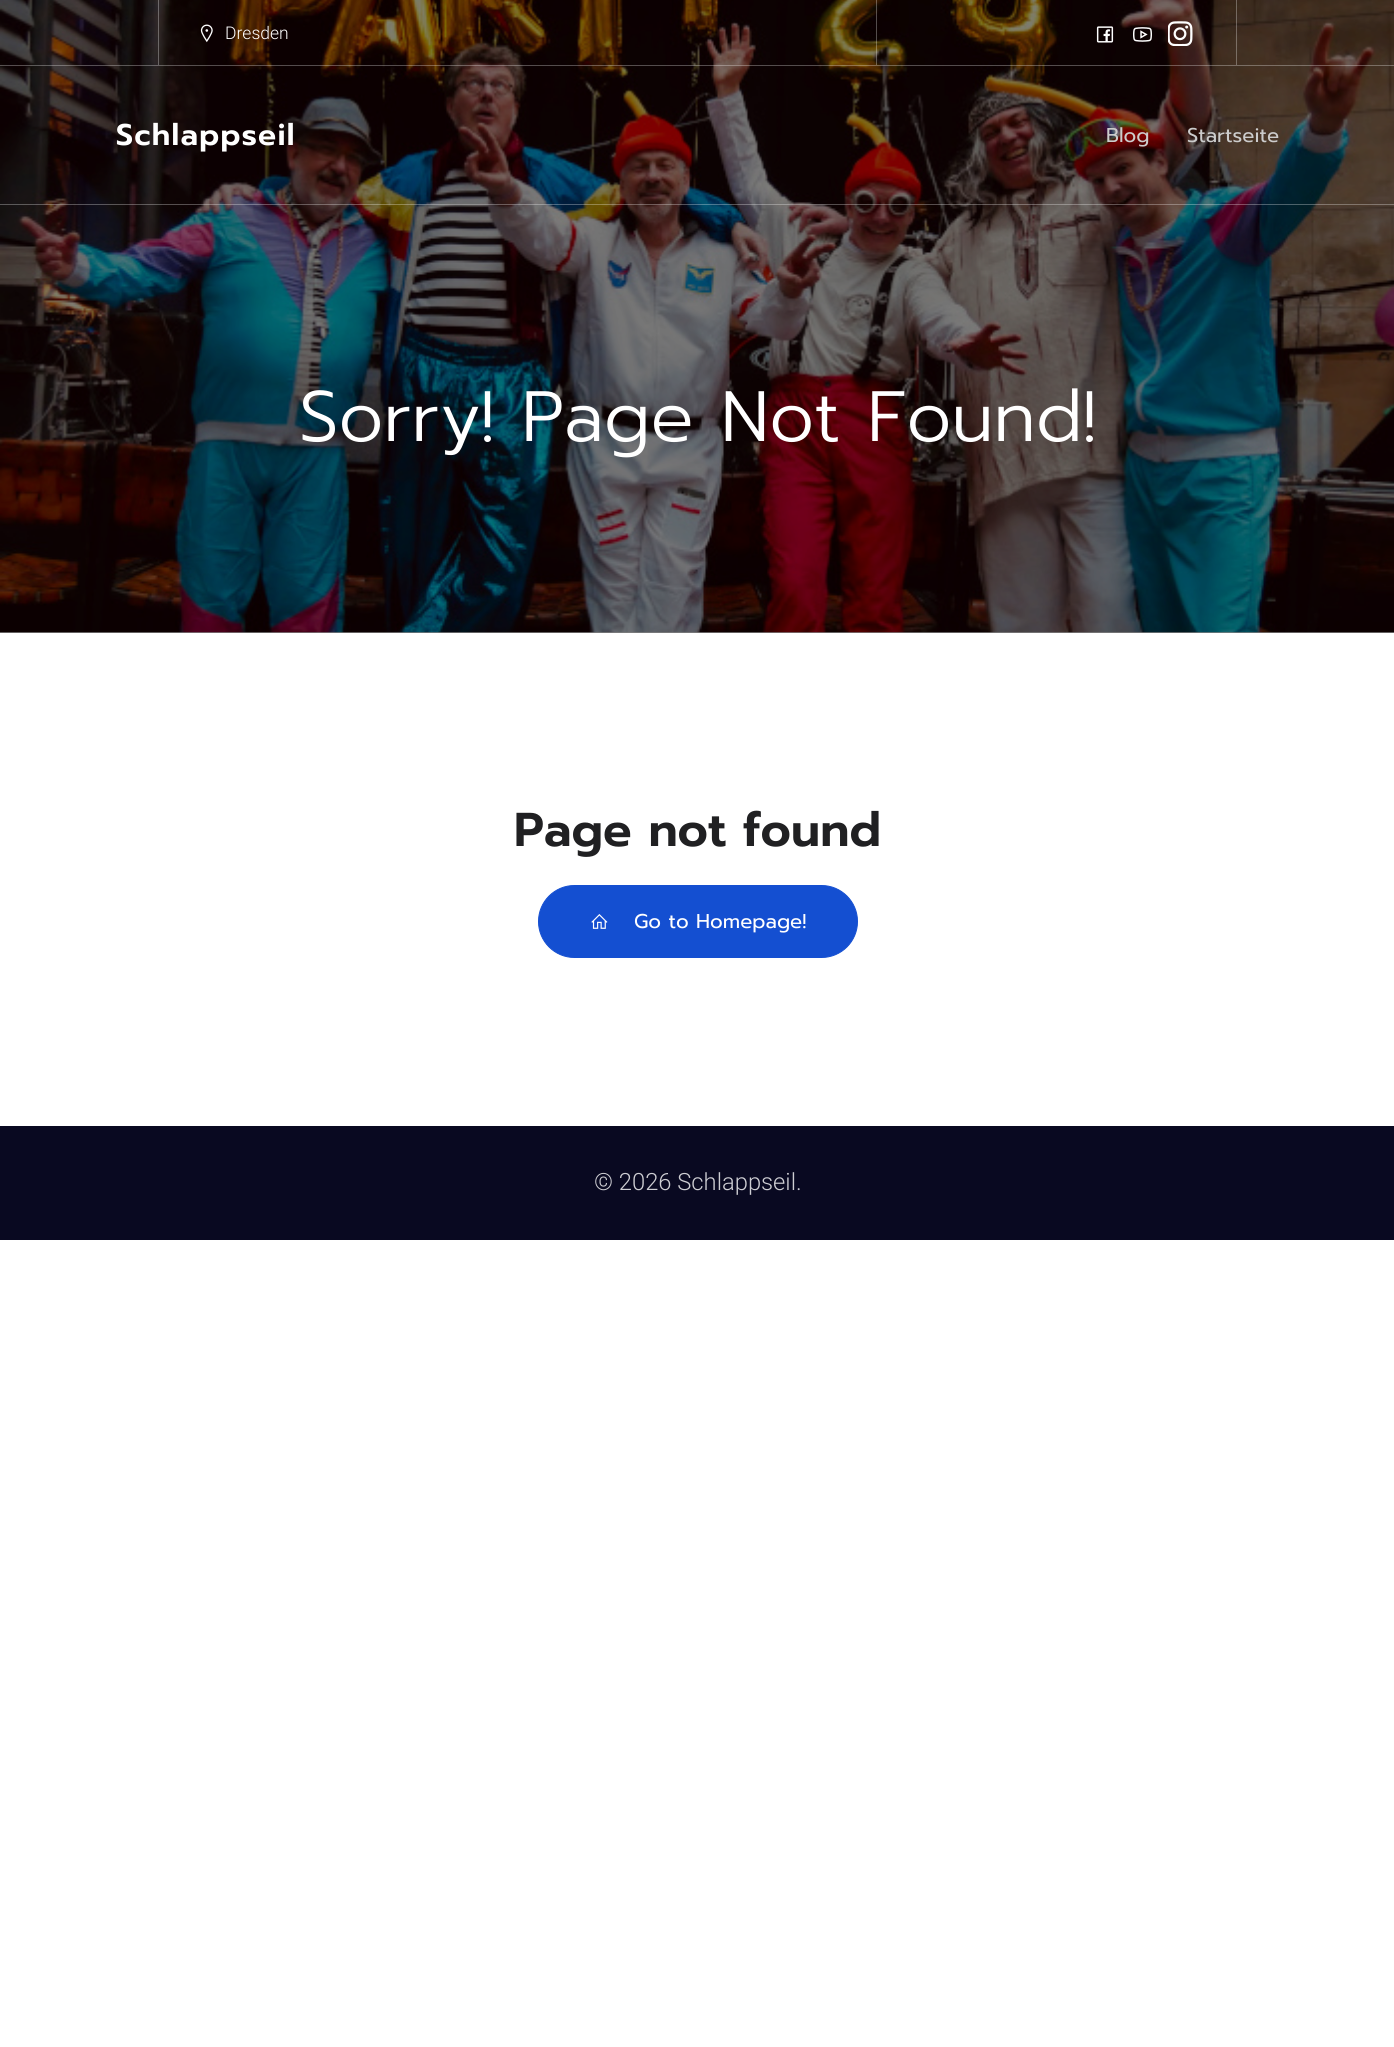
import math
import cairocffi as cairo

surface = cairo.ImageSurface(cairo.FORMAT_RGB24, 1394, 2047)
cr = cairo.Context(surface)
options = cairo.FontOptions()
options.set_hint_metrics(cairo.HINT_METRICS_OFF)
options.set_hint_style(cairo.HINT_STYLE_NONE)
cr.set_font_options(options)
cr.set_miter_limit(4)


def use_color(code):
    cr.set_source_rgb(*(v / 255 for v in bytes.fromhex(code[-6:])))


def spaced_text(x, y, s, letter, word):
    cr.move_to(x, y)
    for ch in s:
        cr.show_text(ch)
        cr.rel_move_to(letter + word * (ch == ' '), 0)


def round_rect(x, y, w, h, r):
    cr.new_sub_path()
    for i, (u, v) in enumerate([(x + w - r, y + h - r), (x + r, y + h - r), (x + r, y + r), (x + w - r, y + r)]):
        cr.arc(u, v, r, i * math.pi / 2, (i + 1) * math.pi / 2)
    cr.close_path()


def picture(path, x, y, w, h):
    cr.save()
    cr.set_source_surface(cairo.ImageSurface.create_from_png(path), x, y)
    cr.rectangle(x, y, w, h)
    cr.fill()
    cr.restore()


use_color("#ffffff")
cr.paint()
use_color("#808080")
cr.rectangle(0, 632, 1394, 1)
cr.fill()
picture("img5.png", 0, 0, 1394, 633)
cr.set_source_rgba(1, 1, 1, 0.3)
cr.rectangle(0, 65, 1394, 1)
cr.fill()
cr.rectangle(876, 0, 1, 65)
cr.fill()
cr.rectangle(158, 0, 1, 65)
cr.fill()
picture("img1.png", 200, 24, 13, 19)
cr.select_font_face("Roboto Light")
cr.set_font_size(17.5)
use_color("#ffffff")
cr.move_to(225, 39)
cr.show_text("Dresden")
cr.set_source_rgba(1, 1, 1, 0.3)
cr.rectangle(1236, 0, 1, 65)
cr.fill()
picture("img2.png", 1096, 26, 18, 17)
picture("img3.png", 1133, 27, 19, 15)
picture("img4.png", 1168, 21, 25, 25)
cr.rectangle(0, 204, 1394, 1)
cr.fill()
cr.select_font_face("Prompt SemiBold")
cr.set_font_size(30)
use_color("#ffffff")
spaced_text(116, 145, "Schlappseil", 1.25, 0)
cr.select_font_face("Prompt")
cr.set_font_size(20)
use_color("#cccccc")
cr.move_to(1106, 142)
cr.show_text("Blog")
cr.move_to(1187, 142)
cr.show_text("Startseite")
cr.select_font_face("Prompt Light")
cr.set_font_size(71.25)
use_color("#ffffff")
cr.move_to(299, 441)
cr.show_text("Sorry! Page Not Found!")
cr.select_font_face("Prompt SemiBold")
cr.set_font_size(47.5)
use_color("#202022")
cr.move_to(514, 846)
cr.show_text("Page not found")
use_color("#144fd1")
round_rect(538.5, 885.5, 319, 72, 36)
cr.fill_preserve()
cr.set_line_width(1)
cr.stroke()
picture("img6.png", 591, 914, 17, 15)
cr.select_font_face("Prompt")
cr.set_font_size(20)
use_color("#ffffff")
cr.move_to(634, 928)
cr.show_text("Go to Homepage!")
use_color("#090921")
cr.rectangle(0, 1126, 1394, 114)
cr.fill()
cr.select_font_face("Roboto Light")
cr.set_font_size(23.75)
use_color("#ceced3")
cr.move_to(594, 1190)
cr.show_text("© 2026 Schlappseil.")
surface.write_to_png("result.png")
